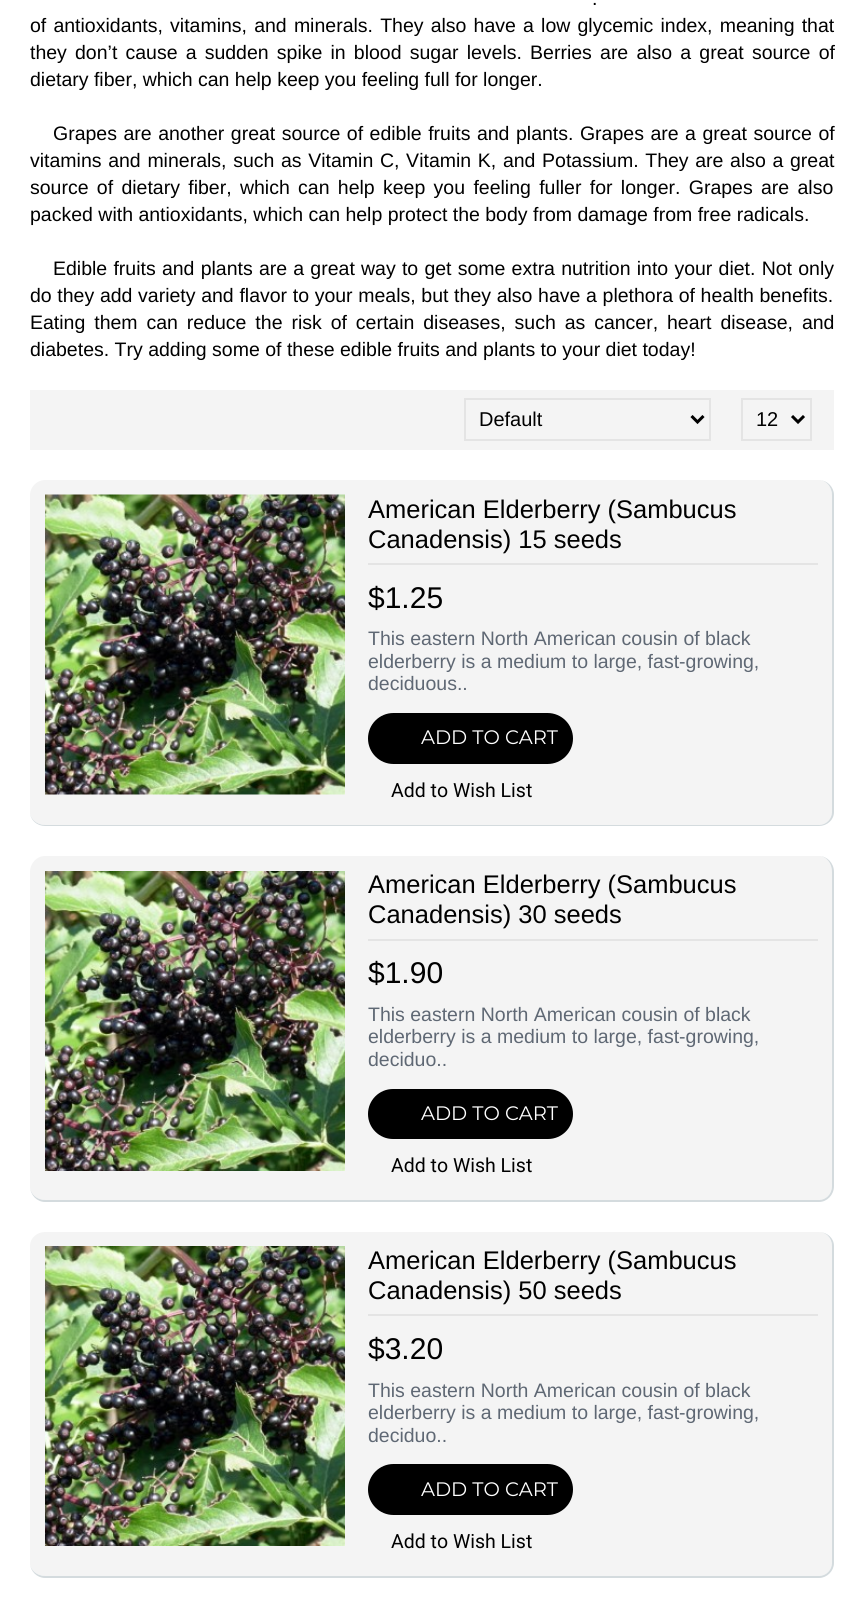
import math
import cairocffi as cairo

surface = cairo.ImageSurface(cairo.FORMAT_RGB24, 863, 1599)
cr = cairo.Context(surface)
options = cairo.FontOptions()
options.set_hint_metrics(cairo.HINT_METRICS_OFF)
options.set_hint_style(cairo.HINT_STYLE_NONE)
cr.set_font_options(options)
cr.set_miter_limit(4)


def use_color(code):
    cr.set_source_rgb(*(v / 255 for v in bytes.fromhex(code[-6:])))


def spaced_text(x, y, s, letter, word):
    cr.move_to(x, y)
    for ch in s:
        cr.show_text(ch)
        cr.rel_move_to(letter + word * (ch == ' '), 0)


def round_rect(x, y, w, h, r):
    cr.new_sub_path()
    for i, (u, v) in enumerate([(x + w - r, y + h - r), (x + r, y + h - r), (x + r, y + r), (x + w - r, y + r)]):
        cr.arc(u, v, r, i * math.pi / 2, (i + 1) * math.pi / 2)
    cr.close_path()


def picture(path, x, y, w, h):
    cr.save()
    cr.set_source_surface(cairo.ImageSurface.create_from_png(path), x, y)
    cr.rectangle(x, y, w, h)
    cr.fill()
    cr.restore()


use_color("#ffffff")
cr.paint()
cr.select_font_face("Liberation Sans")
cr.set_font_size(19.5)
use_color("#000000")
spaced_text(592, 5, ".", 0, 1.1)
spaced_text(30, 32, "of antioxidants, vitamins, and minerals. They also have a low glycemic index, meaning that", 0, 1.75)
spaced_text(30, 59, "they don’t cause a sudden spike in blood sugar levels. Berries are also a great source of", 0, 2.75)
cr.move_to(30, 86)
cr.show_text("dietary fiber, which can help keep you feeling full for longer.")
spaced_text(53, 140, "Grapes are another great source of edible fruits and plants. Grapes are a great source of", 0, 1.1)
spaced_text(30, 167, "vitamins and minerals, such as Vitamin C, Vitamin K, and Potassium. They are also a great", 0, 1.25)
spaced_text(30, 194, "source of dietary fiber, which can help keep you feeling fuller for longer. Grapes are also", 0, 2.9)
cr.move_to(30, 221)
cr.show_text("packed with antioxidants, which can help protect the body from damage from free radicals.")
spaced_text(53, 275, "Edible fruits and plants are a great way to get some extra nutrition into your diet. Not only", 0, 0.8)
spaced_text(30, 302, "do they add variety and flavor to your meals, but they also have a plethora of health benefits.", 0, 0.25)
spaced_text(30, 329, "Eating them can reduce the risk of certain diseases, such as cancer, heart disease, and", 0, 3.5)
cr.move_to(30, 356)
cr.show_text("diabetes. Try adding some of these edible fruits and plants to your diet today!")
use_color("#f4f4f4")
cr.rectangle(30, 390, 804, 60)
cr.fill()
cr.rectangle(465, 399, 245, 41)
use_color("#e4e4e4")
cr.stroke()
cr.new_path()
cr.move_to(691.5, 416)
cr.line_to(697.5, 422)
cr.line_to(703.5, 416)
use_color("#000000")
cr.set_line_width(3)
cr.stroke()
cr.set_font_size(20)
cr.move_to(479, 426)
cr.show_text("Default")
cr.rectangle(742, 399, 69, 41)
use_color("#e4e4e4")
cr.set_line_width(2)
cr.stroke()
cr.new_path()
cr.move_to(792, 416)
cr.line_to(798, 422)
cr.line_to(804, 416)
use_color("#000000")
cr.set_line_width(3)
cr.stroke()
cr.move_to(756, 426)
cr.show_text("12")
use_color("#f4f4f4")
cr.new_path()
cr.move_to(45, 480)
cr.line_to(819, 480)
cr.curve_to(826, 480, 832, 487, 832, 495)
cr.line_to(832, 812)
cr.curve_to(832, 819, 826, 825, 819, 825)
cr.line_to(45, 825)
cr.curve_to(37, 825, 30, 819, 30, 812)
cr.line_to(30, 495)
cr.curve_to(30, 487, 37, 480, 45, 480)
cr.close_path()
cr.fill()
use_color("#d4dbde")
cr.set_fill_rule(cairo.FILL_RULE_EVEN_ODD)
cr.new_path()
cr.move_to(45, 480)
cr.line_to(819, 480)
cr.curve_to(827, 480, 834, 487, 834, 495)
cr.line_to(834, 812)
cr.curve_to(834, 820, 827, 826, 819, 826)
cr.line_to(45, 826)
cr.curve_to(37, 826, 30, 820, 30, 812)
cr.line_to(30, 495)
cr.curve_to(30, 487, 37, 480, 45, 480)
cr.close_path()
cr.move_to(45, 480)
cr.line_to(819, 480)
cr.curve_to(826, 480, 832, 487, 832, 495)
cr.line_to(832, 812)
cr.curve_to(832, 819, 826, 825, 819, 825)
cr.line_to(45, 825)
cr.curve_to(37, 825, 30, 819, 30, 812)
cr.line_to(30, 495)
cr.curve_to(30, 487, 37, 480, 45, 480)
cr.close_path()
cr.fill()
picture("img1.png", 45, 494, 300, 301)
use_color("#e4e4e4")
cr.rectangle(368, 563, 450, 2)
cr.fill()
cr.set_font_size(25.5)
use_color("#000000")
cr.move_to(368, 518)
cr.show_text("American Elderberry (Sambucus")
cr.move_to(368, 548)
cr.show_text("Canadensis) 15 seeds")
cr.set_font_size(30)
cr.move_to(368, 608)
cr.show_text("$1.25")
cr.set_font_size(19.5)
use_color("#5f6874")
cr.move_to(368, 645)
cr.show_text("This eastern North American cousin of black")
cr.move_to(368, 668)
cr.show_text("elderberry is a medium to large, fast-growing,")
cr.move_to(368, 690)
cr.show_text("deciduous..")
use_color("#000000")
round_rect(368, 713, 205, 51, 25.5)
cr.fill()
cr.select_font_face("Montserrat")
use_color("#ffffff")
cr.move_to(421, 744)
cr.show_text("ADD TO CART")
cr.select_font_face("Roboto")
use_color("#000000")
cr.move_to(391, 797)
cr.show_text("Add to Wish List")
use_color("#f4f4f4")
cr.set_fill_rule(cairo.FILL_RULE_WINDING)
cr.new_path()
cr.move_to(45, 856)
cr.line_to(819, 856)
cr.curve_to(826, 856, 832, 863, 832, 872)
cr.line_to(832, 1186)
cr.curve_to(832, 1194, 826, 1200, 819, 1200)
cr.line_to(45, 1200)
cr.curve_to(37, 1200, 30, 1194, 30, 1186)
cr.line_to(30, 872)
cr.curve_to(30, 863, 37, 856, 45, 856)
cr.close_path()
cr.fill()
use_color("#d4dbde")
cr.set_fill_rule(cairo.FILL_RULE_EVEN_ODD)
cr.new_path()
cr.move_to(45, 856)
cr.line_to(819, 856)
cr.curve_to(827, 856, 834, 863, 834, 872)
cr.line_to(834, 1186)
cr.curve_to(834, 1195, 827, 1202, 819, 1202)
cr.line_to(45, 1202)
cr.curve_to(37, 1202, 30, 1195, 30, 1186)
cr.line_to(30, 872)
cr.curve_to(30, 863, 37, 856, 45, 856)
cr.close_path()
cr.move_to(45, 856)
cr.line_to(819, 856)
cr.curve_to(826, 856, 832, 863, 832, 872)
cr.line_to(832, 1186)
cr.curve_to(832, 1194, 826, 1200, 819, 1200)
cr.line_to(45, 1200)
cr.curve_to(37, 1200, 30, 1194, 30, 1186)
cr.line_to(30, 872)
cr.curve_to(30, 863, 37, 856, 45, 856)
cr.close_path()
cr.fill()
picture("img2.png", 45, 871, 300, 300)
use_color("#e4e4e4")
cr.rectangle(368, 939, 450, 2)
cr.fill()
cr.select_font_face("Liberation Sans")
cr.set_font_size(25.5)
use_color("#000000")
cr.move_to(368, 893)
cr.show_text("American Elderberry (Sambucus")
cr.move_to(368, 923)
cr.show_text("Canadensis) 30 seeds")
cr.set_font_size(30)
cr.move_to(368, 983)
cr.show_text("$1.90")
cr.set_font_size(19.5)
use_color("#5f6874")
cr.move_to(368, 1021)
cr.show_text("This eastern North American cousin of black")
cr.move_to(368, 1043)
cr.show_text("elderberry is a medium to large, fast-growing,")
cr.move_to(368, 1066)
cr.show_text("deciduo..")
use_color("#000000")
round_rect(368, 1089, 205, 50, 25)
cr.fill()
cr.select_font_face("Montserrat")
use_color("#ffffff")
cr.move_to(421, 1120)
cr.show_text("ADD TO CART")
cr.select_font_face("Roboto")
use_color("#000000")
cr.move_to(391, 1172)
cr.show_text("Add to Wish List")
use_color("#f4f4f4")
cr.set_fill_rule(cairo.FILL_RULE_WINDING)
cr.new_path()
cr.move_to(45, 1232)
cr.line_to(819, 1232)
cr.curve_to(826, 1232, 832, 1238, 832, 1246)
cr.line_to(832, 1563)
cr.curve_to(832, 1570, 826, 1576, 819, 1576)
cr.line_to(45, 1576)
cr.curve_to(37, 1576, 30, 1570, 30, 1563)
cr.line_to(30, 1246)
cr.curve_to(30, 1238, 37, 1232, 45, 1232)
cr.close_path()
cr.fill()
use_color("#d4dbde")
cr.set_fill_rule(cairo.FILL_RULE_EVEN_ODD)
cr.new_path()
cr.move_to(45, 1232)
cr.line_to(819, 1232)
cr.curve_to(827, 1232, 834, 1238, 834, 1246)
cr.line_to(834, 1563)
cr.curve_to(834, 1571, 827, 1578, 819, 1578)
cr.line_to(45, 1578)
cr.curve_to(37, 1578, 30, 1571, 30, 1563)
cr.line_to(30, 1246)
cr.curve_to(30, 1238, 37, 1232, 45, 1232)
cr.close_path()
cr.move_to(45, 1232)
cr.line_to(819, 1232)
cr.curve_to(826, 1232, 832, 1238, 832, 1246)
cr.line_to(832, 1563)
cr.curve_to(832, 1570, 826, 1576, 819, 1576)
cr.line_to(45, 1576)
cr.curve_to(37, 1576, 30, 1570, 30, 1563)
cr.line_to(30, 1246)
cr.curve_to(30, 1238, 37, 1232, 45, 1232)
cr.close_path()
cr.fill()
picture("img2.png", 45, 1246, 300, 300)
use_color("#e4e4e4")
cr.rectangle(368, 1314, 450, 2)
cr.fill()
cr.select_font_face("Liberation Sans")
cr.set_font_size(25.5)
use_color("#000000")
cr.move_to(368, 1269)
cr.show_text("American Elderberry (Sambucus")
cr.move_to(368, 1299)
cr.show_text("Canadensis) 50 seeds")
cr.set_font_size(30)
cr.move_to(368, 1359)
cr.show_text("$3.20")
cr.set_font_size(19.5)
use_color("#5f6874")
cr.move_to(368, 1397)
cr.show_text("This eastern North American cousin of black")
cr.move_to(368, 1419)
cr.show_text("elderberry is a medium to large, fast-growing,")
cr.move_to(368, 1442)
cr.show_text("deciduo..")
use_color("#000000")
round_rect(368, 1464, 205, 51, 25.5)
cr.fill()
cr.select_font_face("Montserrat")
use_color("#ffffff")
cr.move_to(421, 1496)
cr.show_text("ADD TO CART")
cr.select_font_face("Roboto")
use_color("#000000")
cr.move_to(391, 1548)
cr.show_text("Add to Wish List")
surface.write_to_png("result.png")
